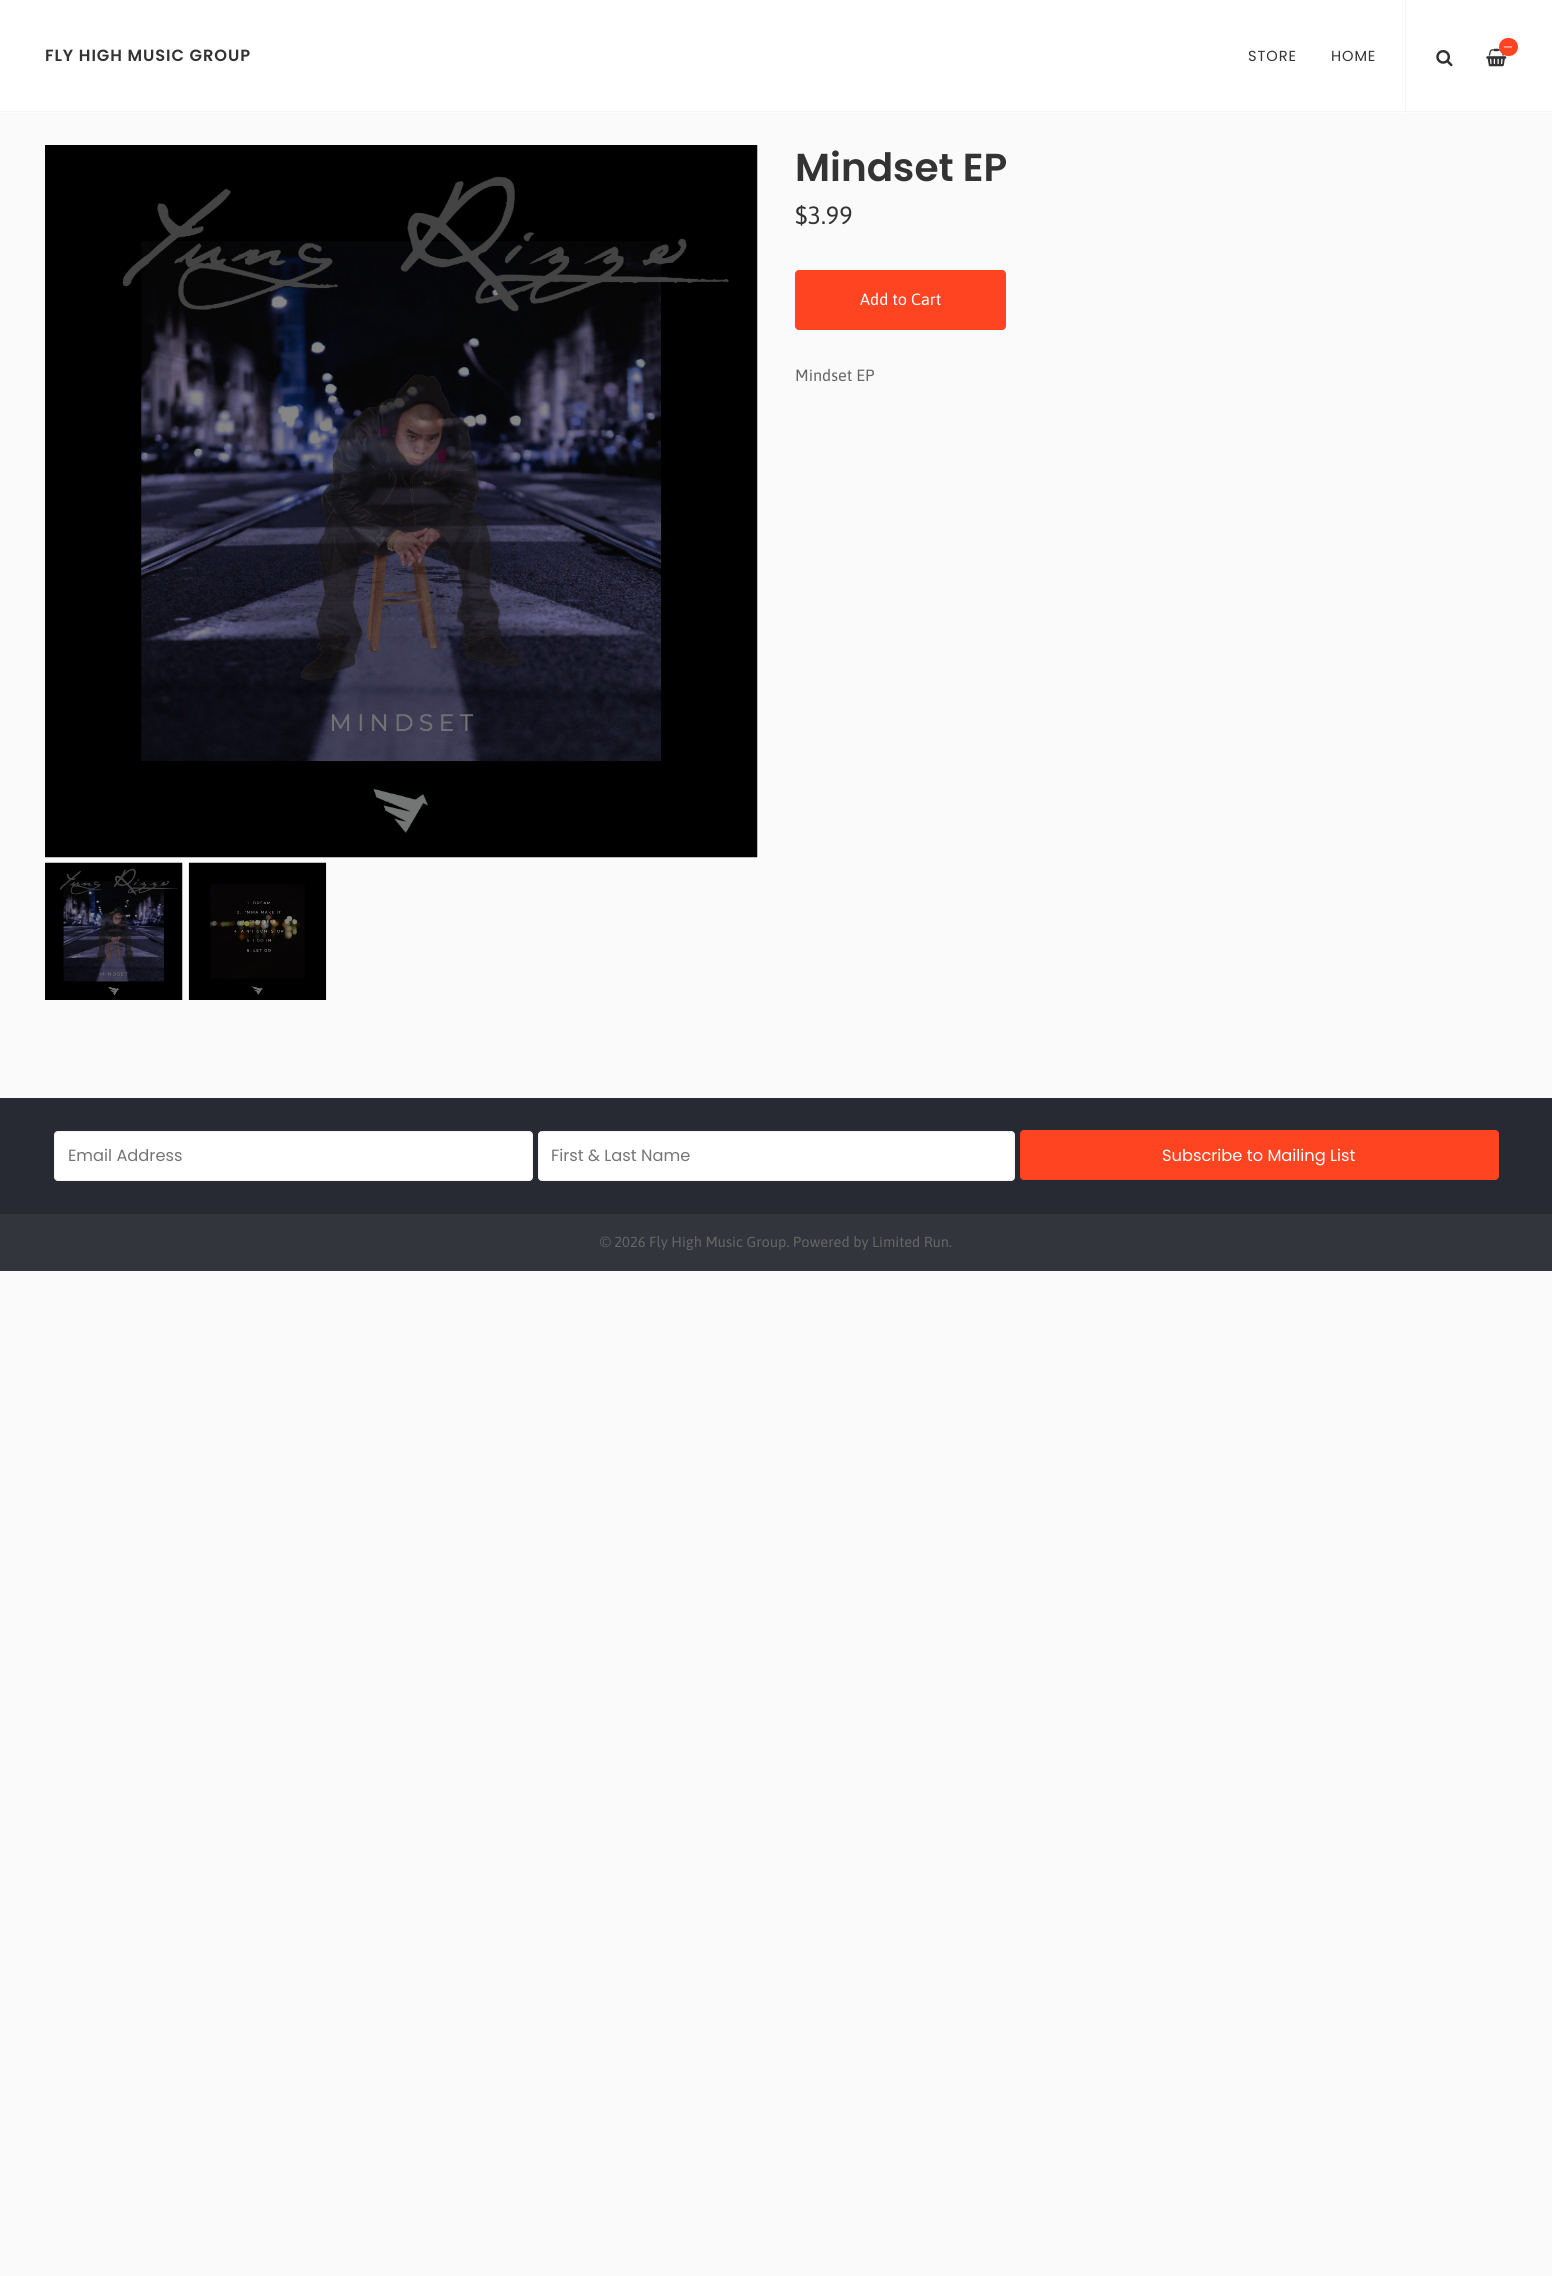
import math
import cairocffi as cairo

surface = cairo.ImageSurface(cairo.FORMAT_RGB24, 1552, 2276)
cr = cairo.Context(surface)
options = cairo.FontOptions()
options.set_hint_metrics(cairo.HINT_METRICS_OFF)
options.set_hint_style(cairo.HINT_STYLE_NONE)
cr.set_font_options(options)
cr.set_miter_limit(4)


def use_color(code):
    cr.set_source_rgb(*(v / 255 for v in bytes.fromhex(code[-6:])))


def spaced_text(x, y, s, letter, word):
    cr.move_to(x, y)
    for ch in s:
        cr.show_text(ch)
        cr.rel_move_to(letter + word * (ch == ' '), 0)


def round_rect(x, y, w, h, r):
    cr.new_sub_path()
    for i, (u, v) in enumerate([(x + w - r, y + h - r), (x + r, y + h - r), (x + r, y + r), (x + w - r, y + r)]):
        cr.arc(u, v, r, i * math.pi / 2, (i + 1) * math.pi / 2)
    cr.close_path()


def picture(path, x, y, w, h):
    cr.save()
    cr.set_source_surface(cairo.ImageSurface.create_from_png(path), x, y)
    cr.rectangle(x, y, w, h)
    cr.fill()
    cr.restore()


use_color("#fafafa")
cr.paint()
use_color("#ffffff")
cr.rectangle(0, 0, 1552, 113)
cr.fill()
use_color("#f4f4f4")
cr.rectangle(0, 111, 1552, 1)
cr.fill()
cr.rectangle(1405, 0, 1, 113)
cr.fill()
picture("img1.png", 1436, 50, 17, 17)
picture("img2.png", 1486, 48, 21, 19)
use_color("#ff4422")
round_rect(1499, 38, 19, 18, 9)
cr.fill()
cr.select_font_face("Poppins")
cr.set_font_size(11)
use_color("#ffffff")
spaced_text(1503, 51, "—", 0.9, 0)
cr.select_font_face("Poppins SemiBold")
cr.set_font_size(16.25)
use_color("#333333")
spaced_text(45, 61, "FLY HIGH MUSIC GROUP", 0.9, 0)
cr.select_font_face("Poppins")
cr.set_font_size(14.6)
spaced_text(1248, 61, "STORE", 0.9, 0)
spaced_text(1331, 61, "HOME", 0.9, 0)
picture("img3.png", 45, 145, 713, 713)
picture("img4.png", 45, 862, 138, 138)
picture("img5.png", 188, 862, 139, 138)
cr.select_font_face("Poppins SemiBold")
cr.set_font_size(39)
cr.move_to(795, 181)
cr.show_text("Mindset EP")
cr.select_font_face("Asap")
cr.set_font_size(25)
cr.move_to(795, 224)
cr.show_text("$3.99")
use_color("#ff4422")
round_rect(795, 270, 211, 60, 4)
cr.fill()
cr.set_font_size(16.25)
use_color("#ffffff")
cr.move_to(860, 305)
cr.show_text("Add to Cart")
use_color("#666666")
cr.move_to(795, 381)
cr.show_text("Mindset EP")
use_color("#272a32")
cr.rectangle(0, 1098, 1552, 116)
cr.fill()
use_color("#ffffff")
round_rect(54.5, 1131.5, 478, 49, 3.5)
cr.fill_preserve()
use_color("#f4f4f4")
cr.set_line_width(1)
cr.stroke()
cr.select_font_face("Poppins")
use_color("#757575")
cr.move_to(68, 1161)
cr.show_text("Email Address")
use_color("#ffffff")
round_rect(538.5, 1131.5, 476, 49, 3.5)
cr.fill_preserve()
use_color("#f4f4f4")
cr.stroke()
use_color("#757575")
cr.move_to(551, 1161)
cr.show_text("First & Last Name")
use_color("#ff4422")
round_rect(1020, 1130, 479, 50, 4)
cr.fill()
use_color("#ffffff")
cr.move_to(1162, 1161)
cr.show_text("Subscribe to Mailing List")
use_color("#32353c")
cr.rectangle(0, 1214, 1552, 57)
cr.fill()
cr.select_font_face("Asap")
cr.set_font_size(14.6)
use_color("#666666")
cr.move_to(600, 1247)
cr.show_text("© 2026 Fly High Music Group. Powered by Limited Run.")
surface.write_to_png("result.png")
